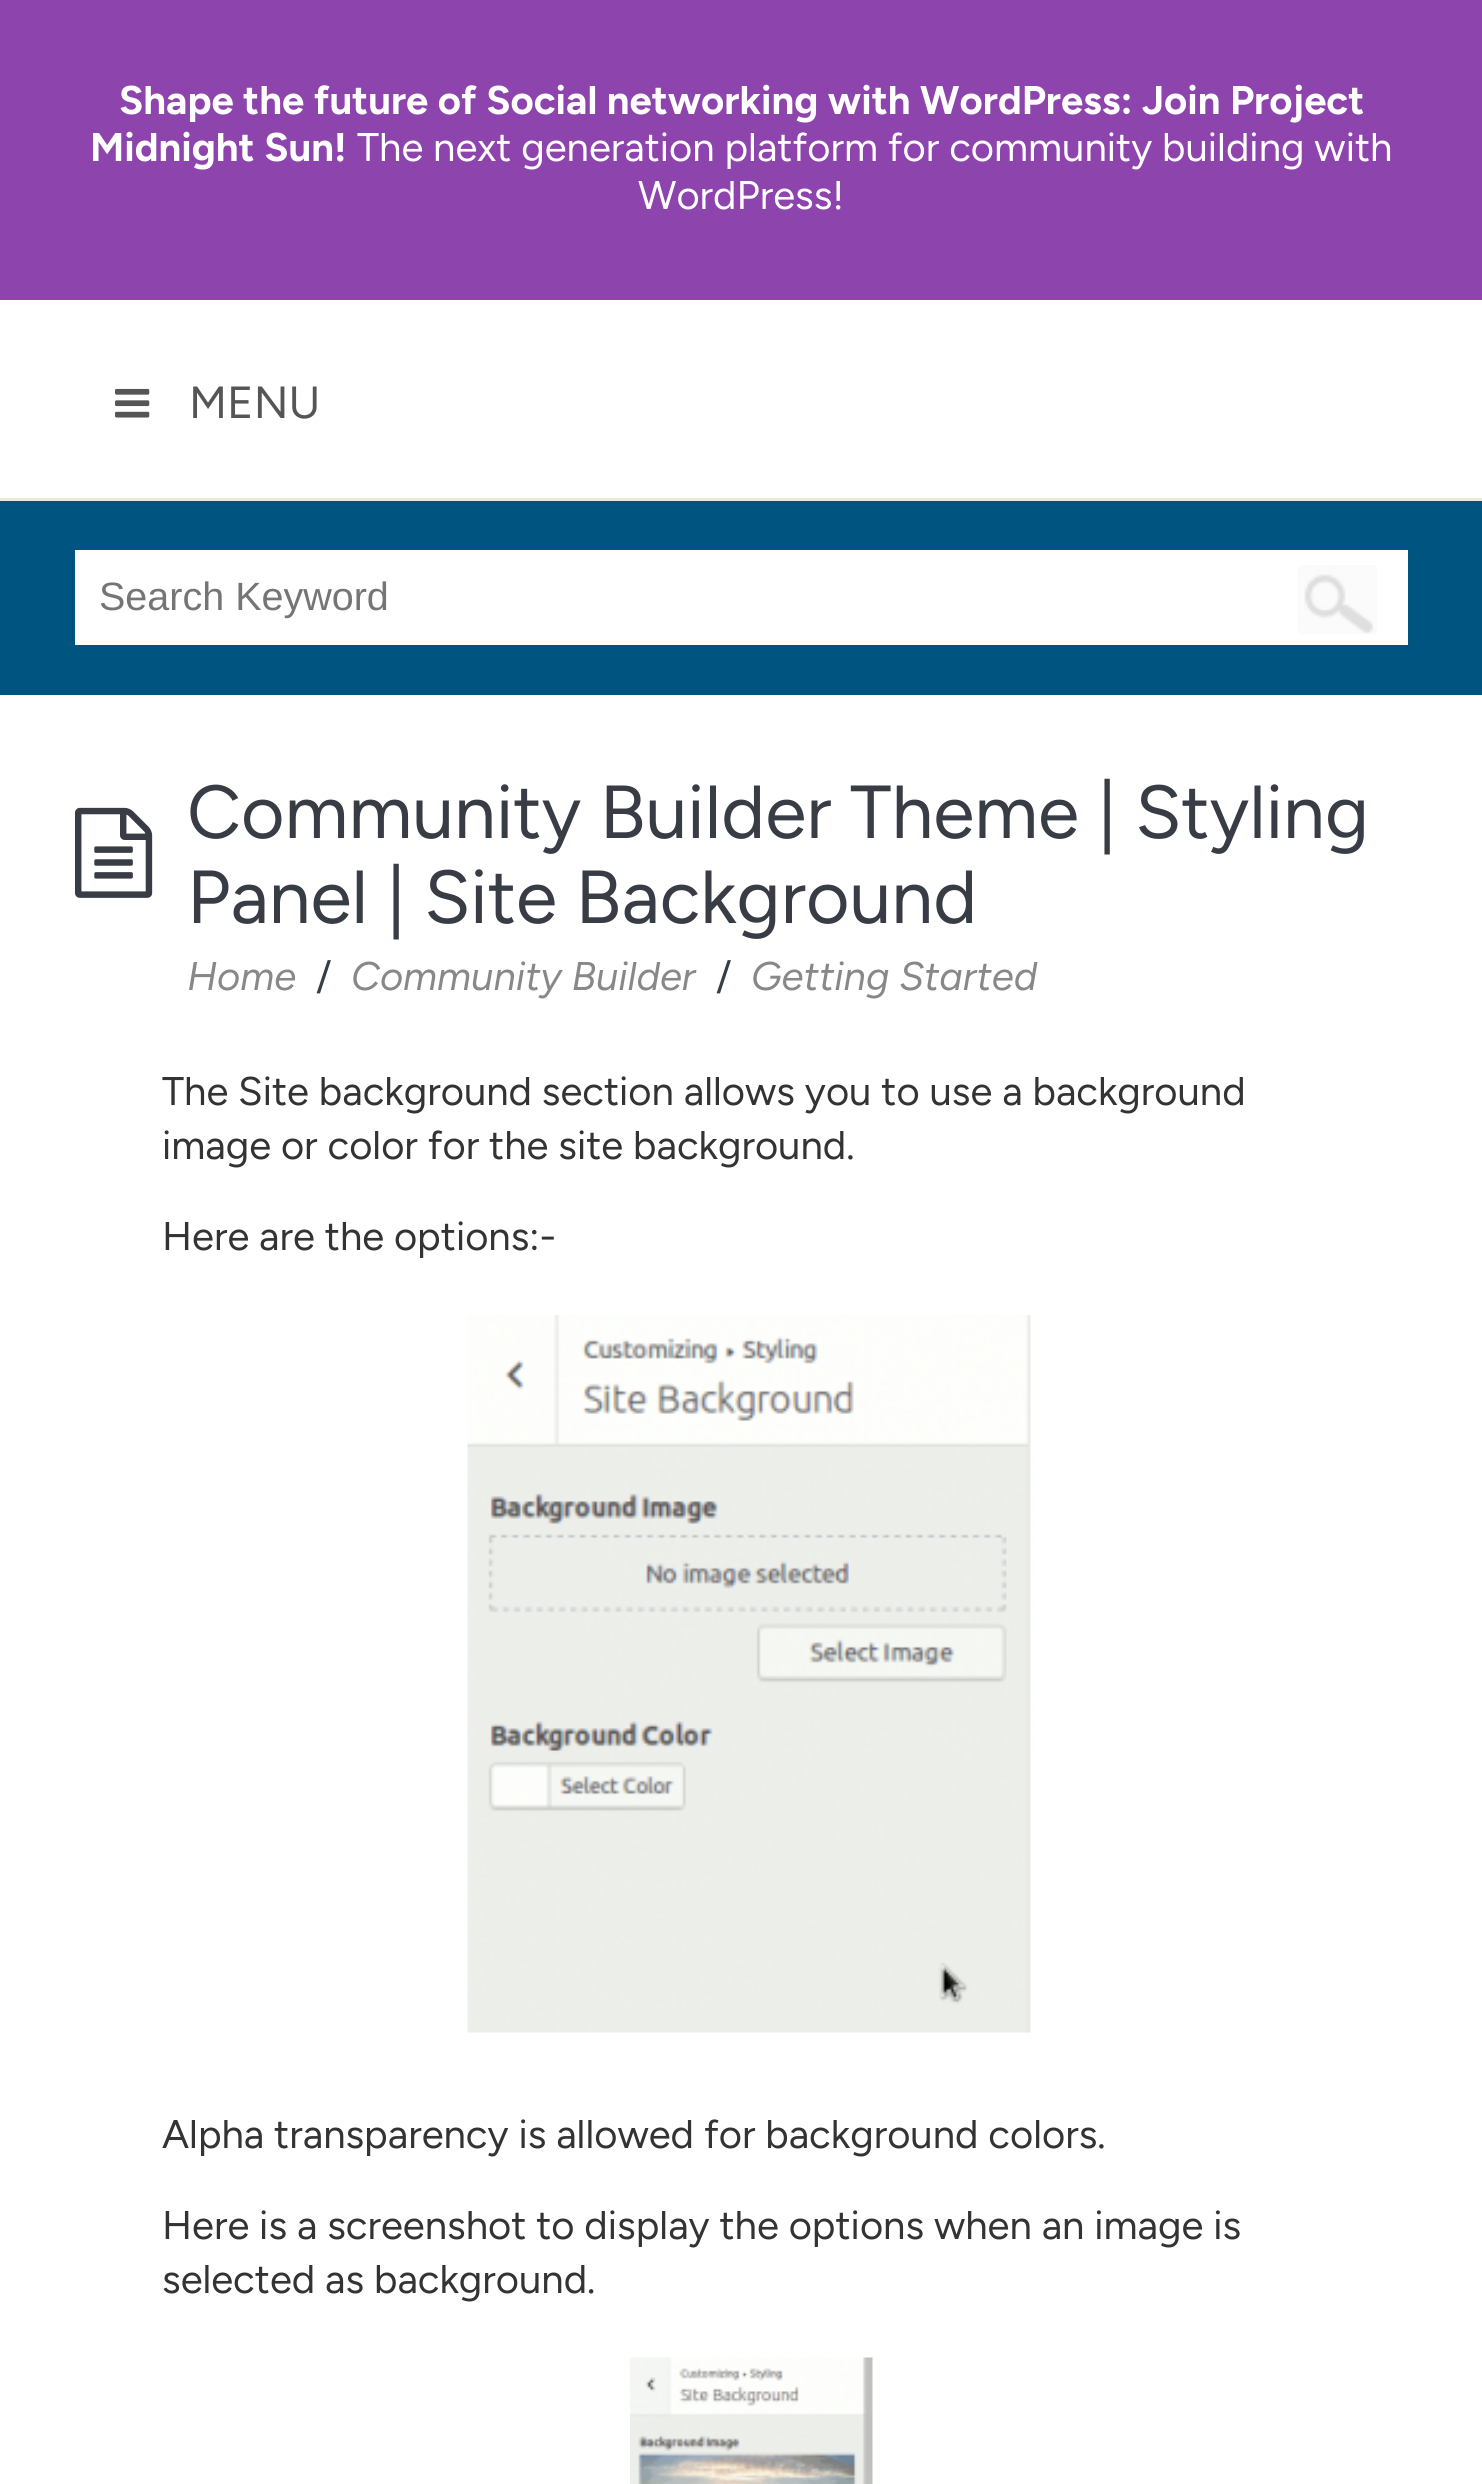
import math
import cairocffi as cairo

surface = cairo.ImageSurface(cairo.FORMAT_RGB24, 1482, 2484)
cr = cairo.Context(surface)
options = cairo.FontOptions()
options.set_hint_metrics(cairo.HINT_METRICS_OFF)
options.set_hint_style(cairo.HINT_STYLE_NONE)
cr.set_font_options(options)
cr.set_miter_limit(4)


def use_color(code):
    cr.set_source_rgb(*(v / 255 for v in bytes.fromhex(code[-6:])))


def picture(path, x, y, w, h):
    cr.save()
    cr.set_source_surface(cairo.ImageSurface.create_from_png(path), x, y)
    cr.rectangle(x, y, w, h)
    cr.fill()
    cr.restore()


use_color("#ffffff")
cr.paint()
use_color("#8e44ad")
cr.rectangle(0, 0, 1482, 300)
cr.fill()
cr.select_font_face("Figtree", cairo.FONT_SLANT_NORMAL, cairo.FONT_WEIGHT_BOLD)
cr.set_font_size(40)
use_color("#ffffff")
cr.move_to(119, 114)
cr.show_text("Shape the future of Social networking with WordPress: Join Project")
cr.move_to(90, 161)
cr.show_text("Midnight Sun!")
cr.select_font_face("Figtree")
cr.move_to(357, 161)
cr.show_text("The next generation platform for community building with")
cr.move_to(638, 209)
cr.show_text("WordPress!")
use_color("#e8e8e8")
cr.rectangle(0, 498, 1482, 3)
cr.fill()
picture("img1.png", 115, 388, 35, 30)
cr.set_font_size(45)
use_color("#555555")
cr.move_to(189, 418)
cr.show_text("MENU")
use_color("#005580")
cr.rectangle(0, 501, 1482, 194)
cr.fill()
use_color("#ffffff")
cr.rectangle(75, 550, 1333, 95)
cr.fill()
cr.select_font_face("Liberation Sans")
cr.set_font_size(39.5)
use_color("#757575")
cr.move_to(99, 610)
cr.show_text("Search Keyword")
picture("img2.png", 1298, 565, 79, 69)
picture("img3.png", 75, 807, 78, 91)
cr.select_font_face("Figtree")
cr.set_font_size(75)
use_color("#373c45")
cr.move_to(187, 838)
cr.show_text("Community Builder Theme | Styling")
cr.move_to(187, 923)
cr.show_text("Panel | Site Background")
cr.select_font_face("Figtree Light", cairo.FONT_SLANT_ITALIC)
cr.set_font_size(40)
use_color("#888888")
cr.move_to(187, 990)
cr.show_text("Home")
cr.select_font_face("Figtree")
use_color("#373c45")
cr.move_to(316, 990)
cr.show_text("/")
cr.select_font_face("Figtree Light", cairo.FONT_SLANT_ITALIC)
use_color("#888888")
cr.move_to(351, 990)
cr.show_text("Community Builder")
cr.select_font_face("Figtree")
use_color("#373c45")
cr.move_to(716, 990)
cr.show_text("/")
cr.select_font_face("Figtree Light", cairo.FONT_SLANT_ITALIC)
use_color("#888888")
cr.move_to(751, 990)
cr.show_text("Getting Started")
cr.select_font_face("Figtree")
use_color("#333333")
cr.move_to(162, 1105)
cr.show_text("The Site background section allows you to use a background")
cr.move_to(162, 1159)
cr.show_text("image or color for the site background.")
cr.move_to(162, 1250)
cr.show_text("Here are the options:-")
picture("img4.png", 467, 1315, 564, 718)
cr.move_to(162, 2148)
cr.show_text("Alpha transparency is allowed for background colors.")
cr.move_to(162, 2239)
cr.show_text("Here is a screenshot to display the options when an image is")
cr.move_to(162, 2293)
cr.show_text("selected as background.")
picture("img5.png", 630, 2357, 243, 127)
surface.write_to_png("result.png")
